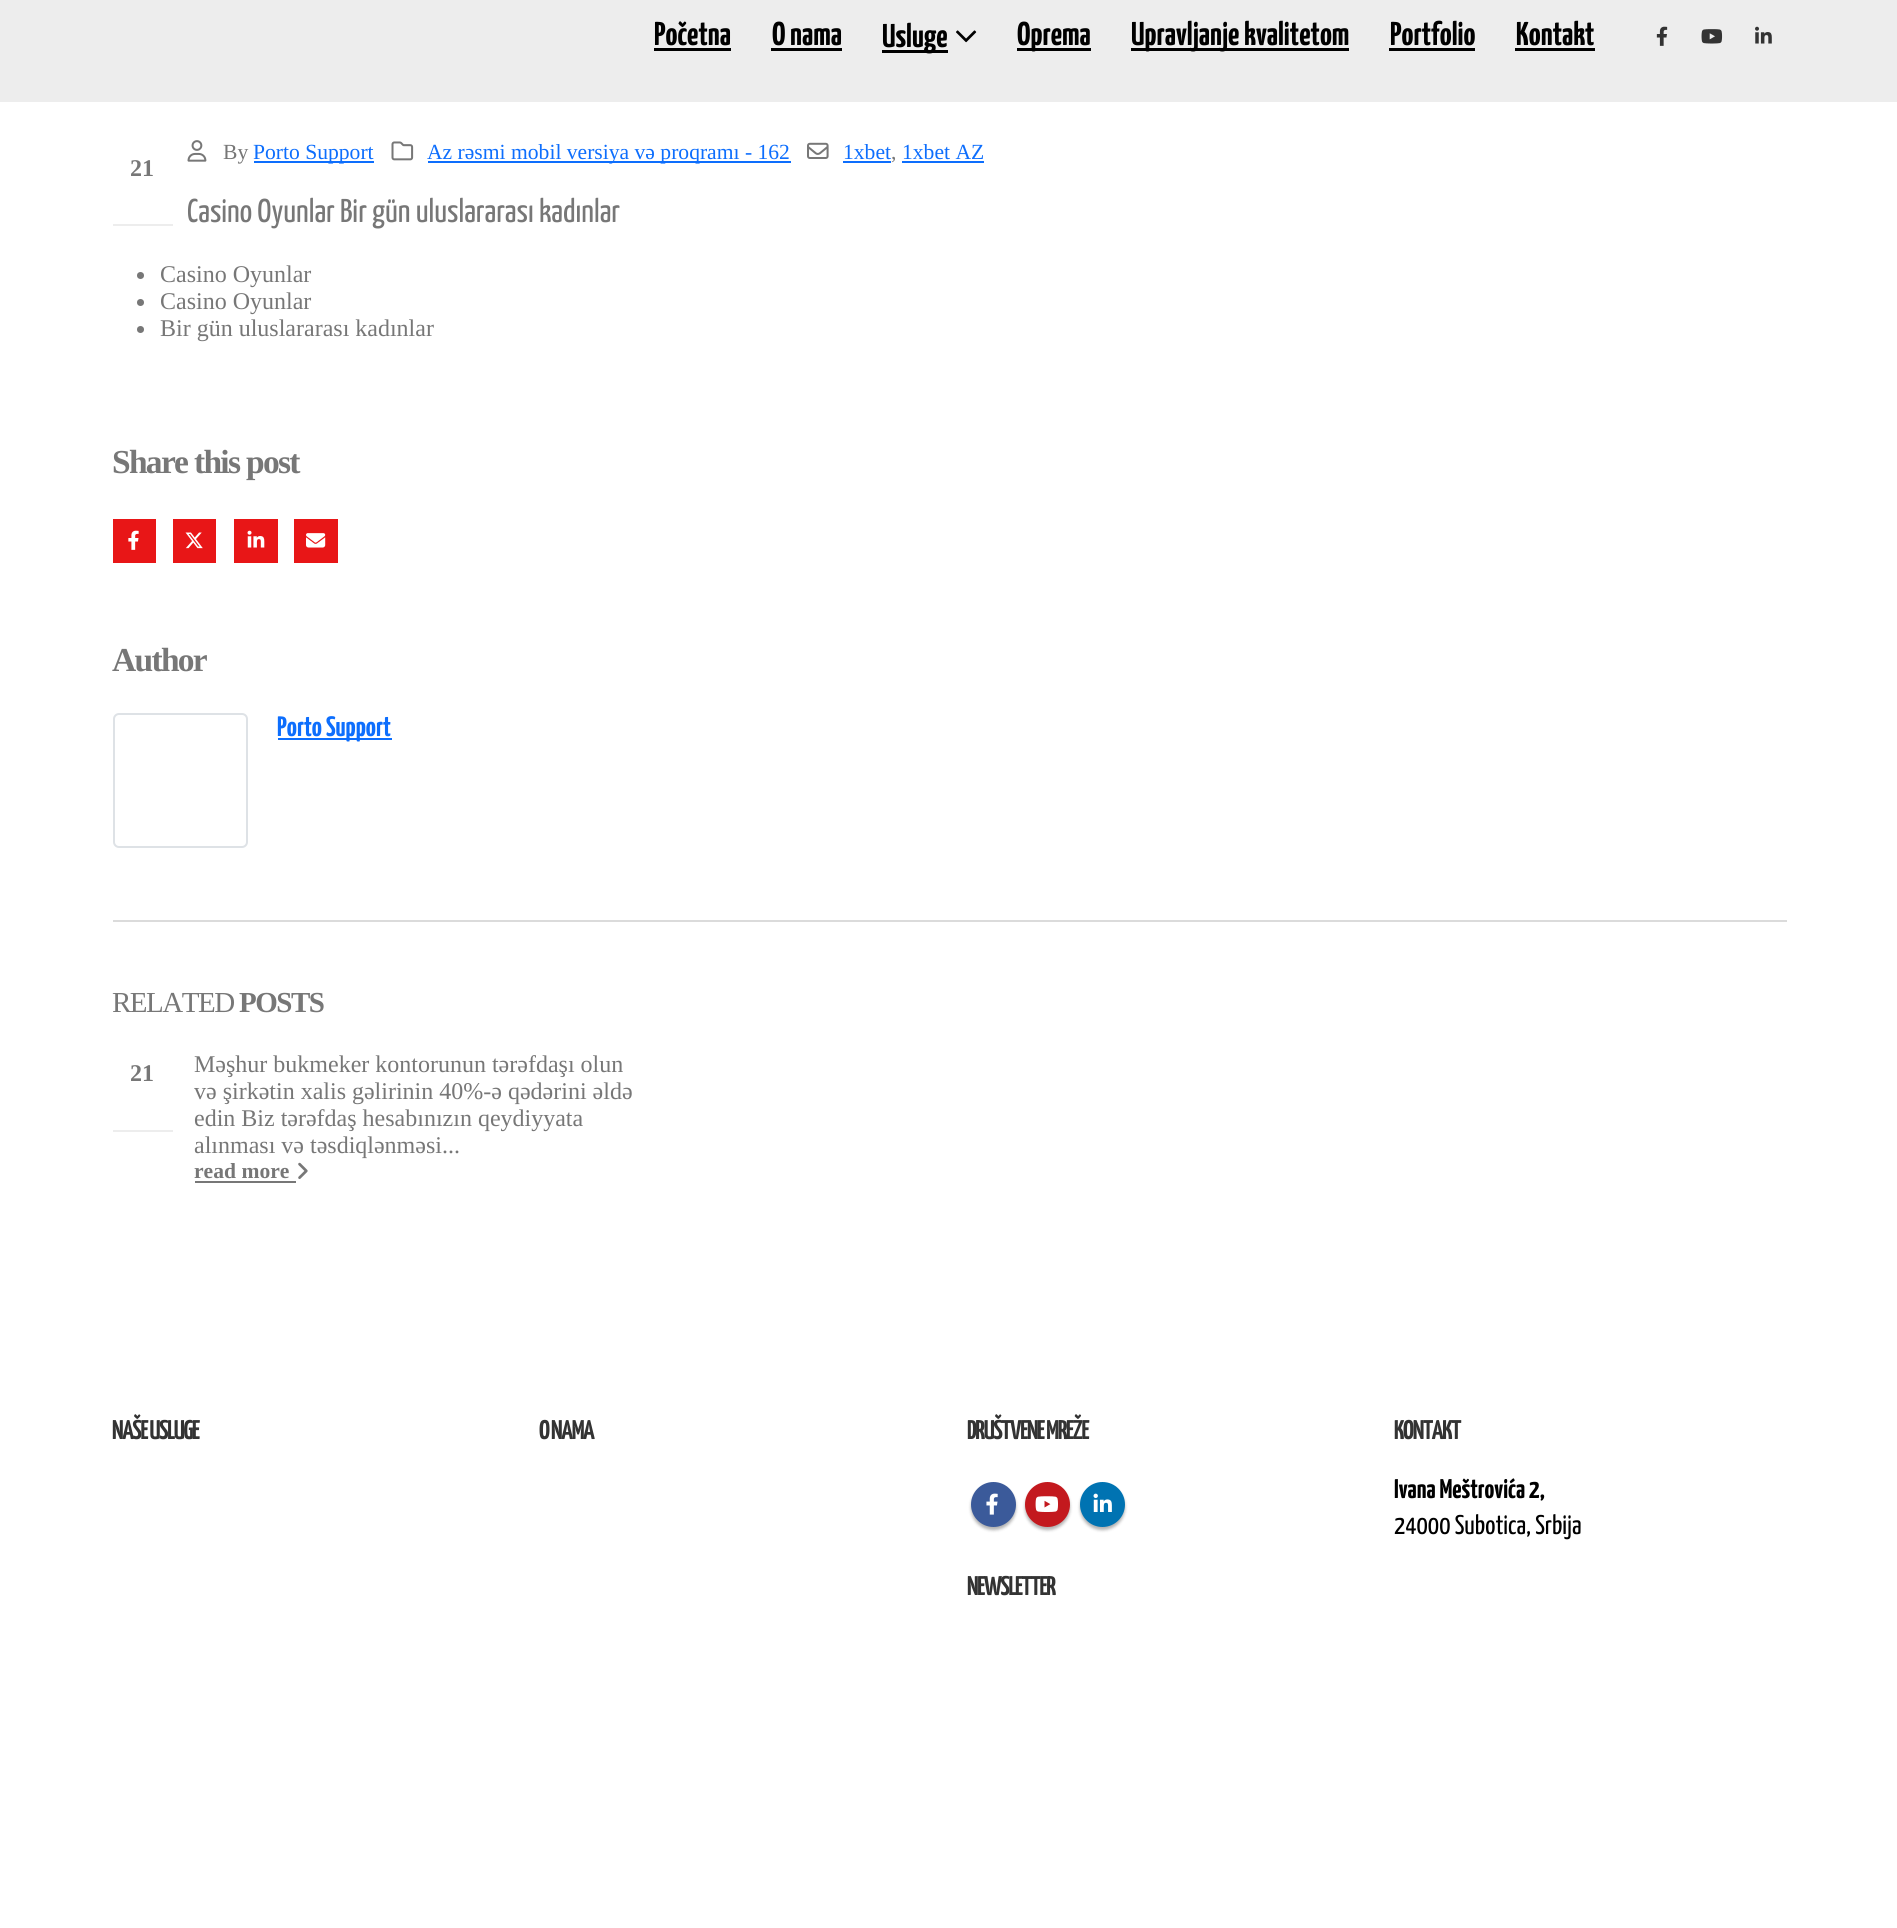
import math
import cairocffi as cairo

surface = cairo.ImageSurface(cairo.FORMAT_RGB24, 1897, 1928)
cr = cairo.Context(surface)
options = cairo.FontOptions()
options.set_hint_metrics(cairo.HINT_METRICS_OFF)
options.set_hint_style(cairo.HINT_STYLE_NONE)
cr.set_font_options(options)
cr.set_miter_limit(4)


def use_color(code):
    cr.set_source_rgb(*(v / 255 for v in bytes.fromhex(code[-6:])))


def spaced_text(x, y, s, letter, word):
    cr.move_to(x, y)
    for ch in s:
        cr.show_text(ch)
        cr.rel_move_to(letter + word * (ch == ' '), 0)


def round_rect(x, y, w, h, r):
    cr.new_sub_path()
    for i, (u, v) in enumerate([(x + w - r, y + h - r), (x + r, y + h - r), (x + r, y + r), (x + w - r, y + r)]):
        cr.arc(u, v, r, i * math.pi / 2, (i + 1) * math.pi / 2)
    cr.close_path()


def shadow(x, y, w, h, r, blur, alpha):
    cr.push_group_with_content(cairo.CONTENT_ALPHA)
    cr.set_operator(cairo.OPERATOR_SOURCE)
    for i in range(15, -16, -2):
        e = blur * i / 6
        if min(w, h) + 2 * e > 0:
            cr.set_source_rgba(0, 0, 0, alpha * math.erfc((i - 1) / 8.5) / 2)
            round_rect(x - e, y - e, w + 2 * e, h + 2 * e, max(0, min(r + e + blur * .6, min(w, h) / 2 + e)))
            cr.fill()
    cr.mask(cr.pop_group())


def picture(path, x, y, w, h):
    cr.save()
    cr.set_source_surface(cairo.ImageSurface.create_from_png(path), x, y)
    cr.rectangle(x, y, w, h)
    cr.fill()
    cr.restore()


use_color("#ffffff")
cr.paint()
use_color("#ededed")
cr.rectangle(0, 0, 1897, 102)
cr.fill()
cr.select_font_face("Yanone Kaffeesatz", cairo.FONT_SLANT_NORMAL, cairo.FONT_WEIGHT_BOLD)
cr.set_font_size(33)
use_color("#000000")
cr.move_to(654, 45)
cr.show_text("Početna")
cr.rectangle(654, 48, 77, 3)
cr.fill()
cr.move_to(772, 45)
cr.show_text("O nama")
cr.rectangle(771, 48, 71, 3)
cr.fill()
cr.rectangle(882, 50, 66, 3)
cr.fill()
cr.move_to(882, 47)
cr.show_text("Usluge")
picture("img1.png", 956, 30, 21, 13)
cr.rectangle(1017, 48, 74, 3)
cr.fill()
cr.move_to(1017, 45)
cr.show_text("Oprema")
cr.rectangle(1131, 48, 218, 3)
cr.fill()
cr.move_to(1131, 45)
cr.show_text("Upravljanje kvalitetom")
cr.move_to(1390, 45)
cr.show_text("Portfolio")
cr.rectangle(1389, 48, 86, 3)
cr.fill()
cr.move_to(1516, 45)
cr.show_text("Kontakt")
cr.rectangle(1515, 48, 80, 3)
cr.fill()
picture("img2.png", 1656, 26, 12, 20)
picture("img3.png", 1701, 29, 22, 15)
picture("img4.png", 1755, 26, 17, 18)
cr.select_font_face("Liberation Serif", cairo.FONT_SLANT_NORMAL, cairo.FONT_WEIGHT_BOLD)
cr.set_font_size(24)
use_color("#777777")
cr.move_to(130, 176)
cr.show_text("21")
use_color("#ededed")
cr.rectangle(113, 224, 60, 2)
cr.fill()
picture("img5.png", 187, 140, 20, 22)
cr.select_font_face("Liberation Serif")
cr.set_font_size(21.6)
use_color("#777777")
cr.move_to(223, 159)
cr.show_text("By")
use_color("#0d6efd")
cr.rectangle(254, 161, 120, 2)
cr.fill()
cr.move_to(253, 159)
cr.show_text("Porto Support")
picture("img6.png", 391, 141, 23, 20)
cr.rectangle(428, 161, 363, 2)
cr.fill()
cr.move_to(427, 159)
cr.show_text("Az rəsmi mobil versiya və proqramı - 162")
picture("img7.png", 807, 142, 22, 17)
cr.move_to(843, 159)
cr.show_text("1xbet")
cr.rectangle(843, 161, 48, 2)
cr.fill()
use_color("#777777")
cr.move_to(891, 159)
cr.show_text(",")
use_color("#0d6efd")
cr.move_to(902, 159)
cr.show_text("1xbet AZ")
cr.rectangle(902, 161, 82, 2)
cr.fill()
cr.select_font_face("Yanone Kaffeesatz")
cr.set_font_size(33)
use_color("#777777")
cr.move_to(187, 222)
cr.show_text("Casino Oyunlar Bir gün uluslararası kadınlar")
cr.new_path()
cr.arc(140.5, 275.5, 3.5, 0, 2 * math.pi)
cr.fill()
cr.select_font_face("Liberation Serif")
cr.set_font_size(24)
cr.move_to(160, 282)
cr.show_text("Casino Oyunlar")
cr.new_path()
cr.arc(140.5, 302.5, 3.5, 0, 2 * math.pi)
cr.fill()
cr.move_to(160, 309)
cr.show_text("Casino Oyunlar")
cr.new_path()
cr.arc(140.5, 329.5, 3.5, 0, 2 * math.pi)
cr.fill()
cr.move_to(160, 336)
cr.show_text("Bir gün uluslararası kadınlar")
cr.select_font_face("Liberation Serif", cairo.FONT_SLANT_NORMAL, cairo.FONT_WEIGHT_BOLD)
cr.set_font_size(33.5)
spaced_text(112, 473, "Share this post", -1.7, 0)
use_color("#e81617")
cr.rectangle(113, 519, 43, 44)
cr.fill()
picture("img8.png", 128, 530, 11, 20)
cr.rectangle(173, 519, 43, 44)
cr.fill()
picture("img9.png", 185, 532, 18, 17)
cr.rectangle(234, 519, 44, 44)
cr.fill()
picture("img10.png", 247, 530, 18, 18)
cr.rectangle(294, 519, 44, 44)
cr.fill()
picture("img11.png", 306, 533, 20, 15)
use_color("#777777")
spaced_text(112, 671, "Author", -1.7, 0)
round_rect(114, 714, 133, 133, 5)
use_color("#dee2e6")
cr.stroke()
use_color("#0d6efd")
cr.rectangle(278, 738, 114, 2)
cr.fill()
cr.select_font_face("Yanone Kaffeesatz", cairo.FONT_SLANT_NORMAL, cairo.FONT_WEIGHT_BOLD)
cr.set_font_size(28)
cr.move_to(277, 736)
cr.show_text("Porto Support")
use_color("#dbdbdb")
cr.rectangle(113, 920, 1674, 2)
cr.fill()
cr.select_font_face("Liberation Serif")
cr.set_font_size(29)
use_color("#777777")
spaced_text(112, 1012, "RELATED", -1.5, 0)
cr.select_font_face("Liberation Serif", cairo.FONT_SLANT_NORMAL, cairo.FONT_WEIGHT_BOLD)
spaced_text(239, 1012, "POSTS", -1.5, 0)
cr.set_font_size(24)
cr.move_to(130, 1081)
cr.show_text("21")
use_color("#ededed")
cr.rectangle(113, 1130, 60, 2)
cr.fill()
cr.select_font_face("Liberation Serif")
use_color("#777777")
cr.move_to(194, 1072)
cr.show_text("Məşhur bukmeker kontorunun tərəfdaşı olun")
cr.move_to(194, 1099)
cr.show_text("və şirkətin xalis gəlirinin 40%-ə qədərini əldə")
cr.move_to(194, 1126)
cr.show_text("edin Biz tərəfdaş hesabınızın qeydiyyata")
cr.move_to(194, 1153)
cr.show_text("alınması və təsdiqlənməsi...")
cr.select_font_face("Liberation Serif", cairo.FONT_SLANT_NORMAL, cairo.FONT_WEIGHT_BOLD)
cr.set_font_size(21.6)
cr.move_to(194, 1178)
cr.show_text("read more")
cr.rectangle(195, 1181, 101, 2)
cr.fill()
picture("img12.png", 298, 1162, 10, 17)
cr.select_font_face("Yanone Kaffeesatz", cairo.FONT_SLANT_NORMAL, cairo.FONT_WEIGHT_BOLD)
cr.set_font_size(27)
use_color("#333333")
spaced_text(112, 1439, "NAŠE USLUGE", -1.4, 0)
spaced_text(539, 1439, "O NAMA", -1.4, 0)
spaced_text(967, 1439, "DRUŠTVENE MREŽE", -1.4, 0)
use_color("#000000")
shadow(971, 1485, 45, 45, 22.5, 1.5, 0.3)
use_color("#3b5a9a")
cr.arc(993.5, 1504.5, 22.5, 0, 2 * math.pi)
cr.fill()
picture("img13.png", 986, 1493, 12, 22)
use_color("#000000")
shadow(1025, 1485, 45, 45, 22.5, 1.5, 0.3)
use_color("#c3191e")
cr.arc(1047.5, 1504.5, 22.5, 0, 2 * math.pi)
cr.fill()
picture("img14.png", 1035, 1496, 23, 16)
use_color("#000000")
shadow(1080, 1485, 45, 45, 22.5, 1.5, 0.3)
use_color("#0073b2")
cr.arc(1102.5, 1504.5, 22.5, 0, 2 * math.pi)
cr.fill()
picture("img15.png", 1093, 1493, 19, 19)
use_color("#333333")
spaced_text(967, 1595, "NEWSLETTER", -1.4, 0)
spaced_text(1394, 1439, "KONTAKT", -1.4, 0)
use_color("#000000")
cr.move_to(1394, 1498)
cr.show_text("Ivana Meštrovića 2,")
cr.select_font_face("Yanone Kaffeesatz")
cr.move_to(1394, 1534)
cr.show_text("24000 Subotica, Srbija")
surface.write_to_png("result.png")
